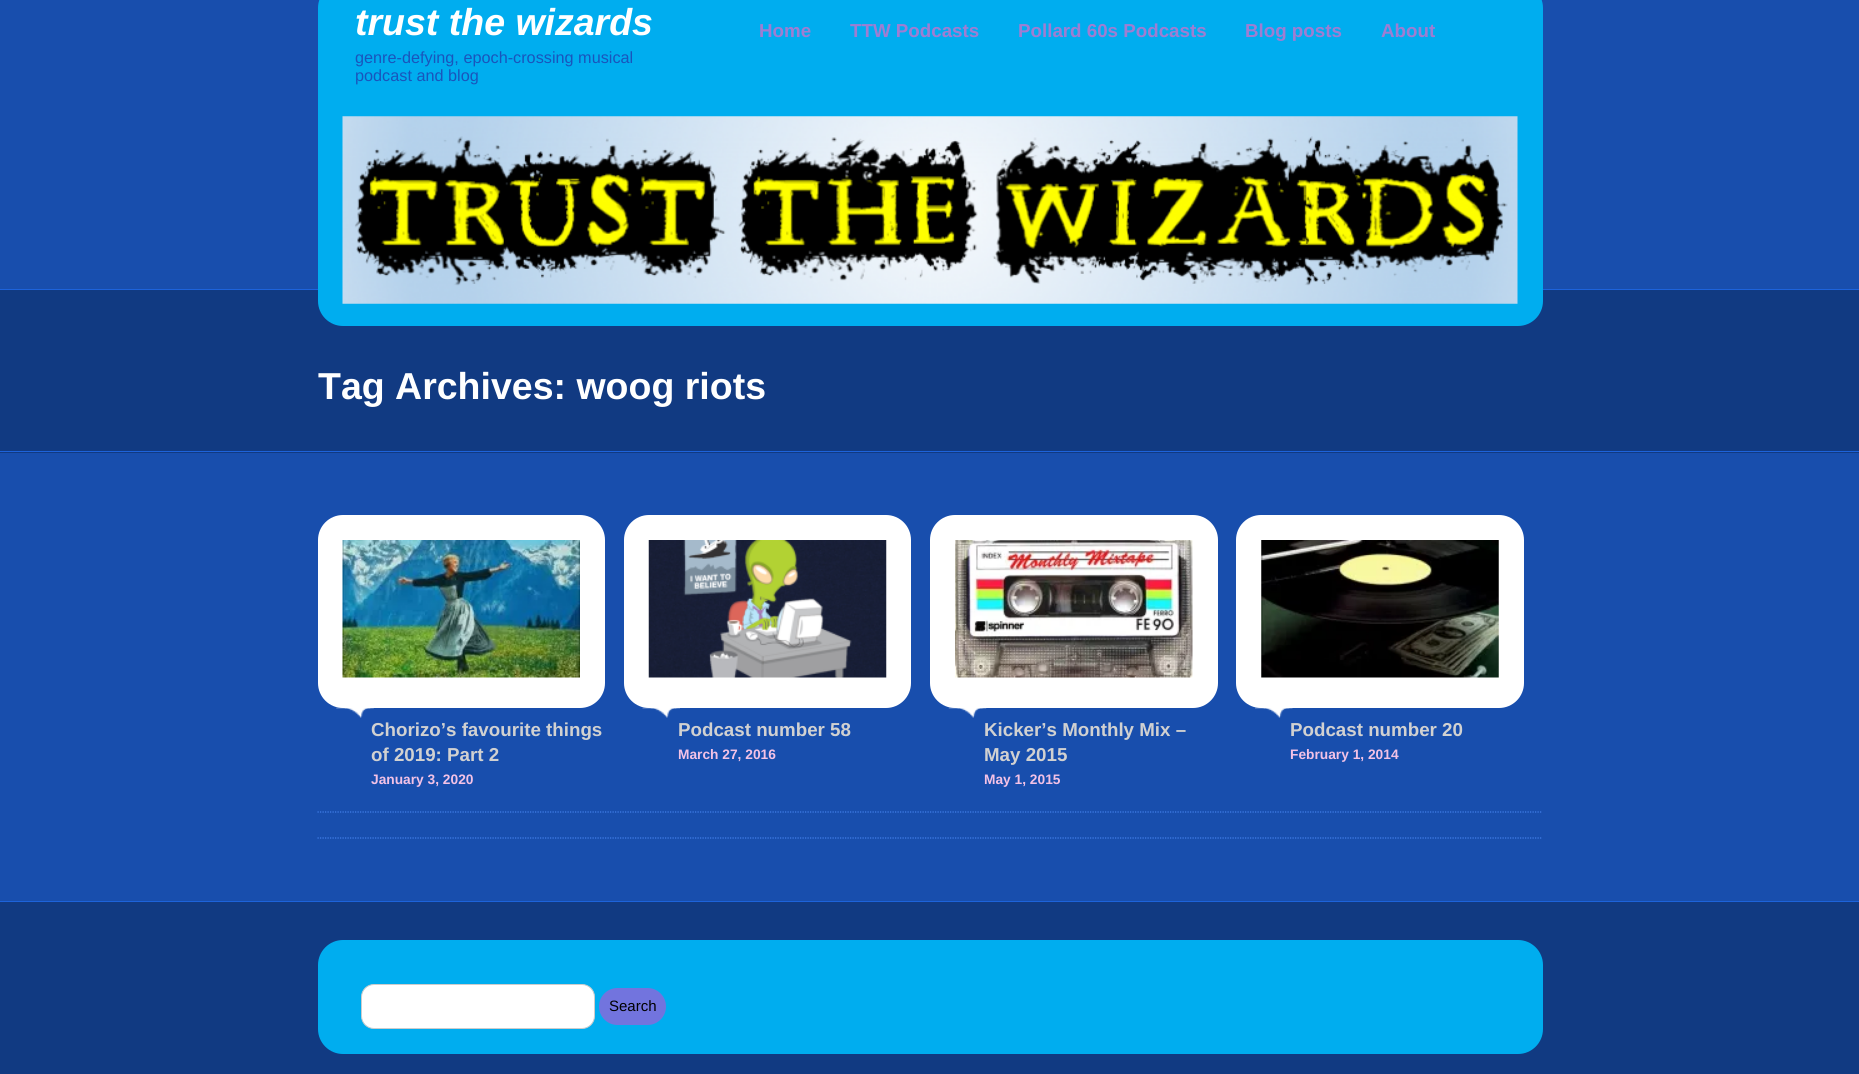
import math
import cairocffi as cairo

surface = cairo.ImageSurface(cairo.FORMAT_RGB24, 1859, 1074)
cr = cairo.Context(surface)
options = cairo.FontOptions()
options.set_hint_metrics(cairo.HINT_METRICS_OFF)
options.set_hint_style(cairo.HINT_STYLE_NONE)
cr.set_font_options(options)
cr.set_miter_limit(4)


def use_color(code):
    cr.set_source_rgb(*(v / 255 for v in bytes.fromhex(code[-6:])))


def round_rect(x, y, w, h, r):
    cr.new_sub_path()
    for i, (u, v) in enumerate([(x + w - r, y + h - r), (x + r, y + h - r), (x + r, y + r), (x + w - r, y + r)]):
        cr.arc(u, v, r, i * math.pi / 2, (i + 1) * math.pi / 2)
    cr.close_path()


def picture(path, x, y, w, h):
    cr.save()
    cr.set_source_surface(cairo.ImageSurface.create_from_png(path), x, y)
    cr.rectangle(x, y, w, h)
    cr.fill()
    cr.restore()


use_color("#184ead")
cr.paint()
use_color("#113a82")
cr.rectangle(0, 290, 1859, 163)
cr.fill()
use_color("#1d63db")
cr.rectangle(0, 289, 1859, 1)
cr.fill()
use_color("#00adef")
round_rect(318, -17, 1225, 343, 25)
cr.fill()
cr.select_font_face("Liberation Sans", cairo.FONT_SLANT_ITALIC, cairo.FONT_WEIGHT_BOLD)
cr.set_font_size(37.5)
use_color("#ffffff")
cr.move_to(355, 35)
cr.show_text("trust the wizards")
cr.select_font_face("Liberation Sans")
cr.set_font_size(16.25)
use_color("#1955bc")
cr.move_to(355, 63)
cr.show_text("genre-defying, epoch-crossing musical")
cr.move_to(355, 81)
cr.show_text("podcast and blog")
cr.select_font_face("Liberation Sans", cairo.FONT_SLANT_NORMAL, cairo.FONT_WEIGHT_BOLD)
cr.set_font_size(18.75)
use_color("#9f7dd2")
cr.move_to(759, 37)
cr.show_text("Home")
cr.move_to(850, 37)
cr.show_text("TTW Podcasts")
cr.move_to(1018, 37)
cr.show_text("Pollard 60s Podcasts")
cr.move_to(1245, 37)
cr.show_text("Blog posts")
cr.move_to(1381, 37)
cr.show_text("About")
picture("img1.png", 342, 116, 1176, 188)
use_color("#1d63db")
cr.rectangle(0, 451, 1859, 1)
cr.fill()
cr.set_font_size(37.5)
use_color("#ffffff")
cr.move_to(318, 399)
cr.show_text("Tag Archives: woog riots")
cr.new_path()
cr.move_to(317.5, 812)
cr.line_to(1542.5, 812)
use_color("#4280ea")
cr.set_line_width(1.2)
cr.set_dash([1.25, 1.25])
cr.stroke()
use_color("#ffffff")
round_rect(318, 515, 287, 193, 25)
cr.fill()
picture("img2.png", 342, 540, 238, 138)
picture("img3.png", 336, 707, 38, 11)
cr.set_font_size(18.75)
use_color("#d1d1d1")
cr.move_to(371, 736)
cr.show_text("Chorizo’s favourite things")
cr.move_to(371, 761)
cr.show_text("of 2019: Part 2")
cr.set_font_size(13.75)
use_color("#f3c2e6")
cr.move_to(371, 784)
cr.show_text("January 3, 2020")
use_color("#ffffff")
round_rect(624, 515, 287, 193, 25)
cr.fill()
picture("img4.png", 648, 540, 239, 138)
picture("img5.png", 642, 707, 38, 11)
cr.set_font_size(18.75)
use_color("#d1d1d1")
cr.move_to(678, 736)
cr.show_text("Podcast number 58")
cr.set_font_size(13.75)
use_color("#f3c2e6")
cr.move_to(678, 759)
cr.show_text("March 27, 2016")
use_color("#ffffff")
round_rect(930, 515, 288, 193, 25)
cr.fill()
picture("img6.png", 955, 540, 238, 138)
picture("img7.png", 948, 707, 39, 11)
cr.set_font_size(18.75)
use_color("#d1d1d1")
cr.move_to(984, 736)
cr.show_text("Kicker’s Monthly Mix –")
cr.move_to(984, 761)
cr.show_text("May 2015")
cr.set_font_size(13.75)
use_color("#f3c2e6")
cr.move_to(984, 784)
cr.show_text("May 1, 2015")
use_color("#ffffff")
round_rect(1236, 515, 288, 193, 25)
cr.fill()
picture("img8.png", 1261, 540, 238, 138)
picture("img9.png", 1255, 707, 38, 11)
cr.set_font_size(18.75)
use_color("#d1d1d1")
cr.move_to(1290, 736)
cr.show_text("Podcast number 20")
cr.set_font_size(13.75)
use_color("#f3c2e6")
cr.move_to(1290, 759)
cr.show_text("February 1, 2014")
cr.new_path()
cr.move_to(317.5, 838)
cr.line_to(1542.5, 838)
use_color("#4280ea")
cr.stroke()
use_color("#113a82")
cr.rectangle(0, 902, 1859, 172)
cr.fill()
use_color("#1d63db")
cr.rectangle(0, 901, 1859, 1)
cr.fill()
use_color("#00adef")
round_rect(318, 940, 1225, 114, 25)
cr.fill()
use_color("#ffffff")
round_rect(361.5, 984.5, 233, 44, 12.5)
cr.fill_preserve()
use_color("#cccccc")
cr.set_line_width(1)
cr.set_dash([])
cr.stroke()
use_color("#7274de")
round_rect(599, 988, 67, 37, 18.5)
cr.fill()
cr.select_font_face("Liberation Sans")
cr.set_font_size(15)
use_color("#000000")
cr.move_to(609, 1011)
cr.show_text("Search")
surface.write_to_png("result.png")
